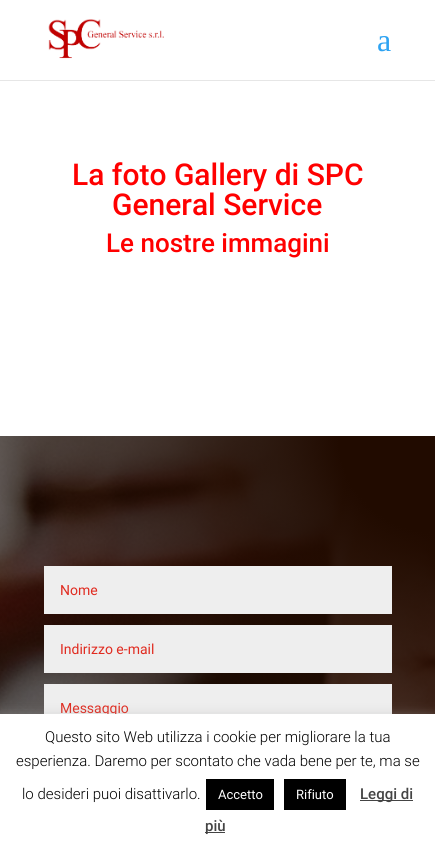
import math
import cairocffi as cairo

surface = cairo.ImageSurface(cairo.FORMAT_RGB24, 435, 851)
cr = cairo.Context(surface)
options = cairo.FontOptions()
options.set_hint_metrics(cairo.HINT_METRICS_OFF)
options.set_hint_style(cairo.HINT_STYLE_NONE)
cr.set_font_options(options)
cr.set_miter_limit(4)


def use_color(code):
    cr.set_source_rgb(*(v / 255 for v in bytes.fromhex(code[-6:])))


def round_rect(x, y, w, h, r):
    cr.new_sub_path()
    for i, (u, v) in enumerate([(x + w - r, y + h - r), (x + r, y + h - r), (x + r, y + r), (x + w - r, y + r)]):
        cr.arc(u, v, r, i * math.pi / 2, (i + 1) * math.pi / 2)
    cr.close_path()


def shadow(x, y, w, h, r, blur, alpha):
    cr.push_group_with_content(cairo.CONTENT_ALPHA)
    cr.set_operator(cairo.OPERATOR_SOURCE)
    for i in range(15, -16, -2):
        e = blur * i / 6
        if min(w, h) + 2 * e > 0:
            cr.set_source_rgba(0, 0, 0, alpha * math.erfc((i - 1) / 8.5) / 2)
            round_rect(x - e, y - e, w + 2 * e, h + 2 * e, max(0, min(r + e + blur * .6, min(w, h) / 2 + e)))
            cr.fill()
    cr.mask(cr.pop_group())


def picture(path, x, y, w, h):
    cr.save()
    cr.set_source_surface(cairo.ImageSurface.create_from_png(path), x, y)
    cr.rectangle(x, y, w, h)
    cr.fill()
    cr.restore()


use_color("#ffffff")
cr.paint()
use_color("#e6e6e6")
cr.rectangle(0, 80, 435, 1)
cr.fill()
picture("img1.png", 48, 19, 116, 40)
cr.select_font_face("Liberation Serif")
cr.set_font_size(32)
use_color("#2ea3f2")
cr.move_to(377, 51)
cr.show_text("a")
cr.select_font_face("Roboto Medium")
cr.set_font_size(30)
use_color("#ff0000")
cr.move_to(72, 185)
cr.show_text("La foto Gallery di SPC")
cr.move_to(112, 215)
cr.show_text("General Service")
cr.set_font_size(26)
cr.move_to(106, 252)
cr.show_text("Le nostre immagini")
picture("img2.png", 0, 436, 435, 278)
use_color("#eeeeee")
cr.rectangle(44, 566, 348, 48)
cr.fill()
cr.select_font_face("Roboto")
cr.set_font_size(14)
use_color("#e02b20")
cr.move_to(60, 595)
cr.show_text("Nome")
use_color("#eeeeee")
cr.rectangle(44, 625, 348, 48)
cr.fill()
use_color("#e02b20")
cr.move_to(60, 654)
cr.show_text("Indirizzo e-mail")
use_color("#eeeeee")
cr.rectangle(44, 684, 348, 30)
cr.fill()
use_color("#e02b20")
cr.move_to(60, 713)
cr.show_text("Messaggio")
use_color("#acabab")
shadow(0, 713, 435, 137, 0, 5, 0.3)
use_color("#ffffff")
cr.rectangle(0, 714, 435, 137)
cr.fill()
cr.select_font_face("Roboto Light")
cr.set_font_size(15)
use_color("#000000")
cr.move_to(45, 742)
cr.show_text("Questo sito Web utilizza i cookie per migliorare la tua")
cr.move_to(16, 766)
cr.show_text("esperienza. Daremo per scontato che vada bene per te, ma se")
cr.move_to(22, 799)
cr.show_text("lo desideri puoi disattivarlo.")
cr.rectangle(206, 779, 68, 31)
cr.fill()
cr.select_font_face("Roboto")
cr.set_font_size(13)
use_color("#ffffff")
cr.move_to(218, 799)
cr.show_text("Accetto")
use_color("#000000")
cr.rectangle(284, 779, 62, 31)
cr.fill()
use_color("#ffffff")
cr.move_to(296, 799)
cr.show_text("Rifiuto")
use_color("#444444")
cr.rectangle(360, 800, 53, 1)
cr.fill()
cr.select_font_face("Roboto Medium")
cr.set_font_size(15)
cr.move_to(360, 799)
cr.show_text("Leggi di")
cr.rectangle(205, 832, 20, 1)
cr.fill()
cr.move_to(205, 831)
cr.show_text("più")
surface.write_to_png("result.png")
